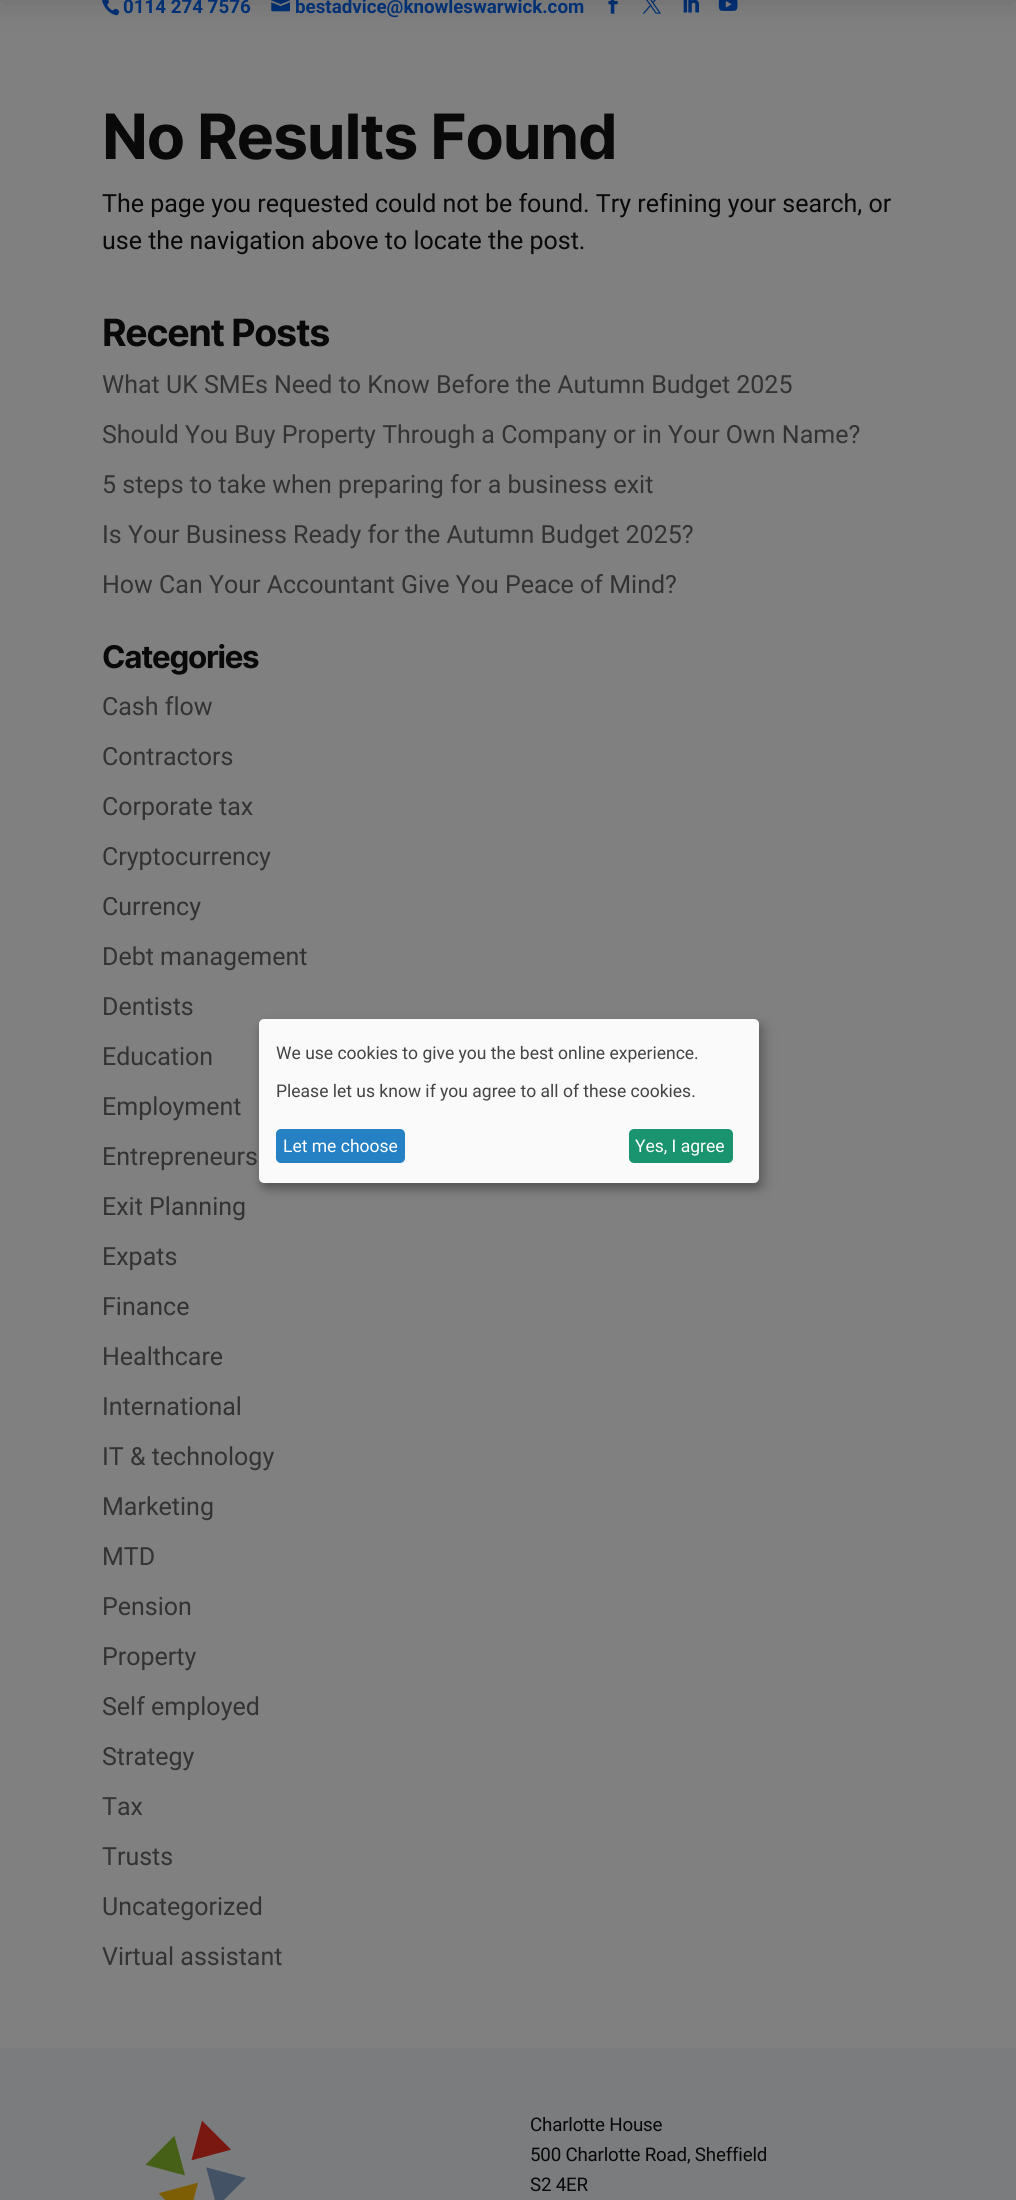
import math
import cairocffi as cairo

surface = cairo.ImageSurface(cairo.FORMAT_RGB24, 1016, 2200)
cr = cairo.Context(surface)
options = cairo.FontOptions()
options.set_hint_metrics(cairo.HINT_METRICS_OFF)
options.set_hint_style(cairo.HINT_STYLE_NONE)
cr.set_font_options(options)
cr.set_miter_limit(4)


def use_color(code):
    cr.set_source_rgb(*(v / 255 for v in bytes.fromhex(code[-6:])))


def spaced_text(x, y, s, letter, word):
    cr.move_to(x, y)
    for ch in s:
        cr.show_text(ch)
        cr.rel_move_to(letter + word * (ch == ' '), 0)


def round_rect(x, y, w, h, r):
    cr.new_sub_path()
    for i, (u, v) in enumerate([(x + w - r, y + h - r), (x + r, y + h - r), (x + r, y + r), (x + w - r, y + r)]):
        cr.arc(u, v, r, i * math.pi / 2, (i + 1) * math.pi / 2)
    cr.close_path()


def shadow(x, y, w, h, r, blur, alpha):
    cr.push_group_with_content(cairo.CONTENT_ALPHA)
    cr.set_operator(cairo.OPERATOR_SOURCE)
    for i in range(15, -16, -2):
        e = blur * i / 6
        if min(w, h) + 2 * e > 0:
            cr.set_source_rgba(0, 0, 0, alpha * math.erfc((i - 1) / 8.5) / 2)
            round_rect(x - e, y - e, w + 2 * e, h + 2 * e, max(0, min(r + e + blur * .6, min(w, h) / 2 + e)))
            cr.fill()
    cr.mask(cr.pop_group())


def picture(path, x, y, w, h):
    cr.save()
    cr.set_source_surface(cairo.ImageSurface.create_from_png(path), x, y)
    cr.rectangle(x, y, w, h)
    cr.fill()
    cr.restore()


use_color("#808080")
cr.paint()
picture("img1.png", 102, 0, 18, 16)
picture("img2.png", 271, 0, 19, 12)
picture("img3.png", 608, 0, 10, 14)
picture("img4.png", 642, 0, 20, 14)
picture("img5.png", 683, 0, 16, 13)
picture("img6.png", 718, 0, 20, 11)
use_color("#000000")
shadow(0, -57, 1016, 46, 0, 19, 0.3)
cr.select_font_face("Roboto", cairo.FONT_SLANT_NORMAL, cairo.FONT_WEIGHT_BOLD)
cr.set_font_size(18.75)
use_color("#013074")
cr.move_to(123, 13)
cr.show_text("0114 274 7576")
cr.move_to(295, 13)
cr.show_text("bestadvice@knowleswarwick.com")
cr.select_font_face("Inter", cairo.FONT_SLANT_NORMAL, cairo.FONT_WEIGHT_BOLD)
cr.set_font_size(62.5)
use_color("#090909")
spaced_text(102, 159, "No Results Found", -1.25, 0)
cr.select_font_face("Roboto")
cr.set_font_size(25)
cr.move_to(102, 212)
cr.show_text("The page you requested could not be found. Try refining your search, or")
cr.move_to(102, 249)
cr.show_text("use the navigation above to locate the post.")
cr.select_font_face("Inter", cairo.FONT_SLANT_NORMAL, cairo.FONT_WEIGHT_BOLD)
cr.set_font_size(37.5)
spaced_text(102, 346, "Recent Posts", -1.25, 0)
cr.select_font_face("Roboto")
cr.set_font_size(25)
use_color("#333333")
cr.move_to(102, 393)
cr.show_text("What UK SMEs Need to Know Before the Autumn Budget 2025")
cr.move_to(102, 443)
cr.show_text("Should You Buy Property Through a Company or in Your Own Name?")
cr.move_to(102, 493)
cr.show_text("5 steps to take when preparing for a business exit")
cr.move_to(102, 543)
cr.show_text("Is Your Business Ready for the Autumn Budget 2025?")
cr.move_to(102, 593)
cr.show_text("How Can Your Accountant Give You Peace of Mind?")
cr.select_font_face("Inter", cairo.FONT_SLANT_NORMAL, cairo.FONT_WEIGHT_BOLD)
cr.set_font_size(31.25)
use_color("#090909")
spaced_text(102, 668, "Categories", -1.25, 0)
cr.select_font_face("Roboto")
cr.set_font_size(25)
use_color("#333333")
cr.move_to(102, 715)
cr.show_text("Cash flow")
cr.move_to(102, 765)
cr.show_text("Contractors")
cr.move_to(102, 815)
cr.show_text("Corporate tax")
cr.move_to(102, 865)
cr.show_text("Cryptocurrency")
cr.move_to(102, 915)
cr.show_text("Currency")
cr.move_to(102, 965)
cr.show_text("Debt management")
cr.move_to(102, 1015)
cr.show_text("Dentists")
cr.move_to(102, 1065)
cr.show_text("Education")
cr.move_to(102, 1115)
cr.show_text("Employment")
cr.move_to(102, 1165)
cr.show_text("Entrepreneurs")
cr.move_to(102, 1215)
cr.show_text("Exit Planning")
cr.move_to(102, 1265)
cr.show_text("Expats")
cr.move_to(102, 1315)
cr.show_text("Finance")
cr.move_to(102, 1365)
cr.show_text("Healthcare")
cr.move_to(102, 1415)
cr.show_text("International")
cr.move_to(102, 1465)
cr.show_text("IT & technology")
cr.move_to(102, 1515)
cr.show_text("Marketing")
cr.move_to(102, 1565)
cr.show_text("MTD")
cr.move_to(102, 1615)
cr.show_text("Pension")
cr.move_to(102, 1665)
cr.show_text("Property")
cr.move_to(102, 1715)
cr.show_text("Self employed")
cr.move_to(102, 1765)
cr.show_text("Strategy")
cr.move_to(102, 1815)
cr.show_text("Tax")
cr.move_to(102, 1865)
cr.show_text("Trusts")
cr.move_to(102, 1915)
cr.show_text("Uncategorized")
cr.move_to(102, 1965)
cr.show_text("Virtual assistant")
use_color("#7b7c7d")
cr.rectangle(0, 2048, 1016, 152)
cr.fill()
picture("img7.png", 145, 2120, 101, 80)
cr.set_font_size(18.75)
use_color("#090909")
spaced_text(530, 2131, "Charlotte House", -0.2, 0)
spaced_text(530, 2161, "500 Charlotte Road, Sheffield", -0.2, 0)
spaced_text(530, 2191, "S2 4ER", -0.2, 0)
use_color("#000000")
shadow(265, 1025, 500, 164, 5, 6, 0.19)
shadow(259, 1024, 500, 164, 5, 4, 0.2)
use_color("#fafafa")
round_rect(259, 1019, 500, 164, 5)
cr.fill()
cr.set_font_size(17.5)
use_color("#444444")
cr.move_to(276, 1059)
cr.show_text("We use cookies to give you the best online experience.")
cr.move_to(276, 1097)
cr.show_text("Please let us know if you agree to all of these cookies.")
use_color("#2581c4")
round_rect(276, 1129, 129, 34, 5)
cr.fill()
use_color("#ffffff")
cr.move_to(283, 1152)
cr.show_text("Let me choose")
use_color("#1a936f")
round_rect(629, 1129, 104, 34, 5)
cr.fill()
use_color("#ffffff")
cr.move_to(635, 1152)
cr.show_text("Yes, I agree")
surface.write_to_png("result.png")
